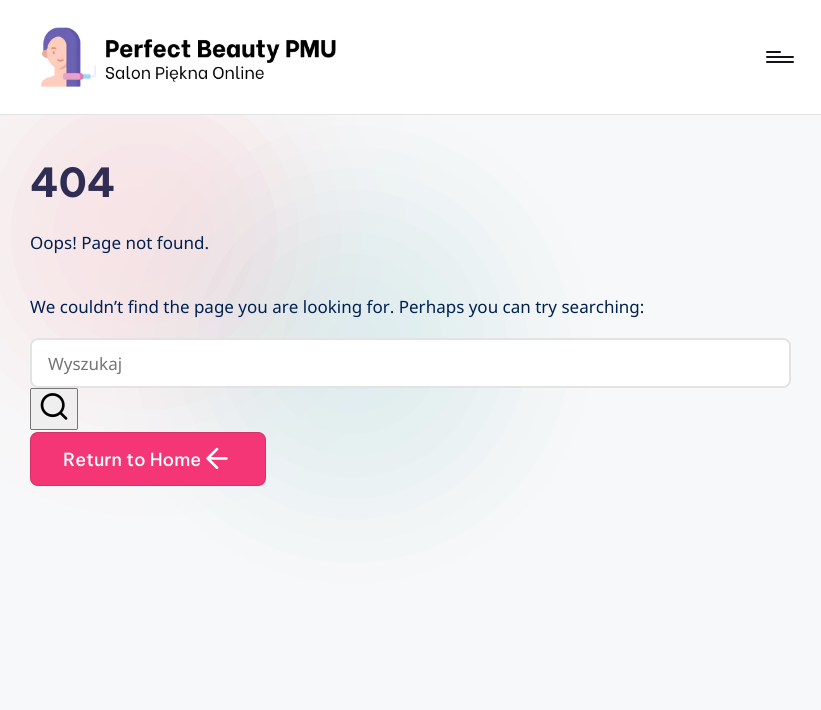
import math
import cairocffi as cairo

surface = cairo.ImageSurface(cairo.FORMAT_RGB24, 821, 710)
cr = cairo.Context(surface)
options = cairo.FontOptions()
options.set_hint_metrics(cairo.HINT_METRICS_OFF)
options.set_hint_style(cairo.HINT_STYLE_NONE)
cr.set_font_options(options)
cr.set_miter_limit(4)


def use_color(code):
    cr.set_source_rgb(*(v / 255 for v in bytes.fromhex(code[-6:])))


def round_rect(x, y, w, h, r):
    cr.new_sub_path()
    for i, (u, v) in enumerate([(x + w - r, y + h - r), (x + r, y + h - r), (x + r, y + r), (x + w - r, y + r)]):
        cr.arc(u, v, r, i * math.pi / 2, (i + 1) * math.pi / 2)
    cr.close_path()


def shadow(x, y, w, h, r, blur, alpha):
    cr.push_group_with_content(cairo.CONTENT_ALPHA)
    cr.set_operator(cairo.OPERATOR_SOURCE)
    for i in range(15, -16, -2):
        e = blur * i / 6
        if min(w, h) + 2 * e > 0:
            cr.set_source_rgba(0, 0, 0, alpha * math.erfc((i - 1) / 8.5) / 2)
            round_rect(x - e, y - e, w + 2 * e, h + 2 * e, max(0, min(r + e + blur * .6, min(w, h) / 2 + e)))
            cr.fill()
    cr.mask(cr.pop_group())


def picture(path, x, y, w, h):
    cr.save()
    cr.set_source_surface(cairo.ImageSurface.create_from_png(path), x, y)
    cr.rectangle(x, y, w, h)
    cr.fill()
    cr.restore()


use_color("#f7f8f9")
cr.paint()
use_color("#f7e3e6")
shadow(0, 90, 288, 288, 144, 64, 1)
use_color("#04868b")
shadow(208, 200, 288, 288, 144, 64, 0.1)
use_color("#ffffff")
cr.rectangle(0, 0, 821, 114)
cr.fill()
use_color("#e3e3e3")
cr.rectangle(0, 114, 821, 1)
cr.fill()
picture("img1.png", 41, 27, 295, 60)
use_color("#131315")
round_rect(766, 56, 28, 2, 1)
cr.fill()
round_rect(766, 51, 15, 2, 1)
cr.fill()
round_rect(766, 61, 28, 2, 1)
cr.fill()
cr.select_font_face("Be Vietnam Pro", cairo.FONT_SLANT_NORMAL, cairo.FONT_WEIGHT_BOLD)
cr.set_font_size(40)
use_color("#302d55")
cr.move_to(30, 197)
cr.show_text("404")
cr.select_font_face("Noto Sans Tai Viet")
cr.set_font_size(17)
use_color("#002050")
cr.move_to(30, 249)
cr.show_text("Oops! Page not found.")
cr.move_to(30, 313)
cr.show_text("We couldn’t find the page you are looking for. Perhaps you can try searching:")
use_color("#ffffff")
round_rect(30, 338, 761, 50, 8)
cr.fill()
round_rect(31, 339, 759, 48, 7)
cr.set_source_rgba(0.725, 0.725, 0.725, 0.4)
cr.stroke()
cr.select_font_face("Noto Sans")
use_color("#757575")
cr.move_to(48, 370)
cr.show_text("Wyszukaj")
use_color("#efefef")
round_rect(30.5, 388.5, 47, 41, 1.5)
cr.fill_preserve()
use_color("#767676")
cr.set_line_width(1)
cr.stroke()
picture("img2.png", 40, 393, 28, 27)
use_color("#f43676")
round_rect(30, 432, 236, 54, 8)
cr.fill()
round_rect(30.5, 432.5, 235, 53, 7.5)
cr.set_source_rgba(0, 0, 0, 0.12)
cr.stroke()
cr.select_font_face("Be Vietnam Pro Medium")
cr.set_font_size(18)
use_color("#ffffff")
cr.move_to(63, 466)
cr.show_text("Return to Home")
picture("img3.png", 206, 447, 22, 22)
surface.write_to_png("result.png")
